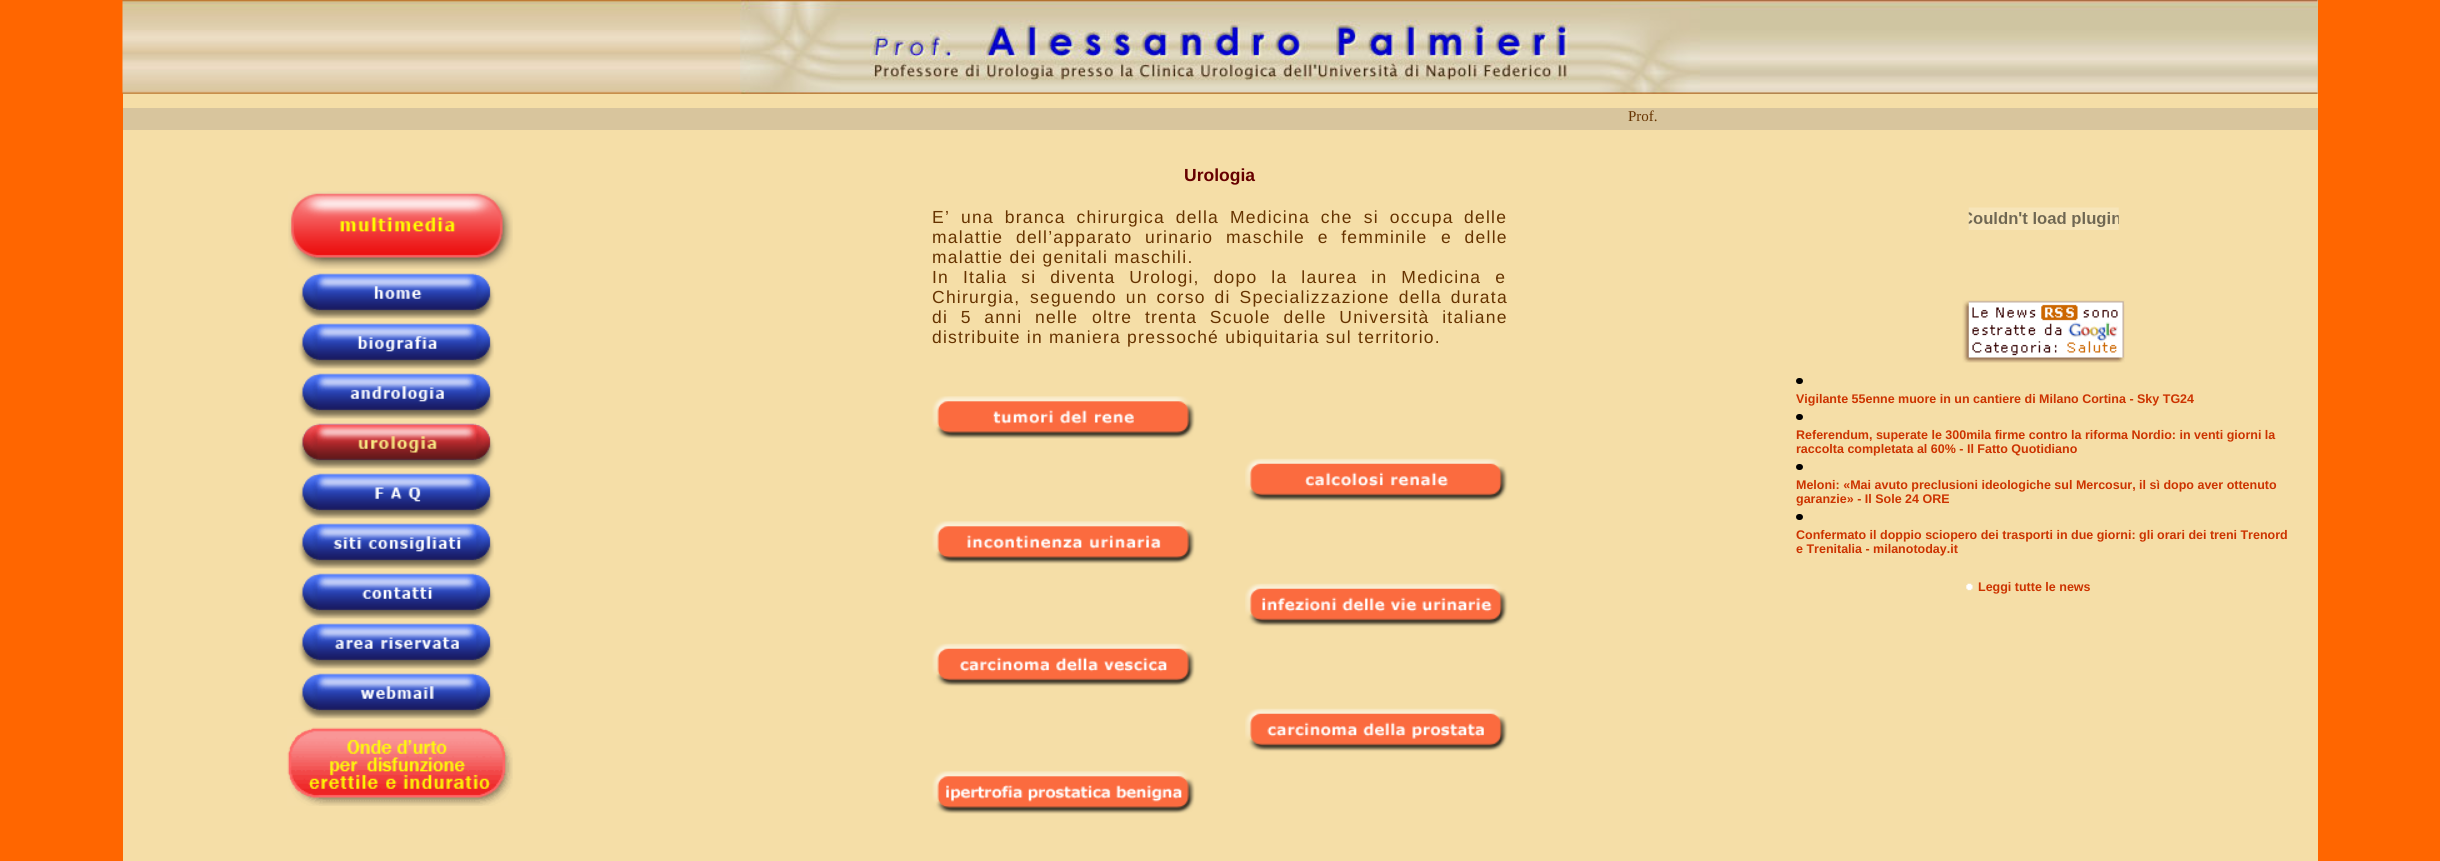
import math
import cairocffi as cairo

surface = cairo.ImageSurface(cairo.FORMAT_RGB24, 2440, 861)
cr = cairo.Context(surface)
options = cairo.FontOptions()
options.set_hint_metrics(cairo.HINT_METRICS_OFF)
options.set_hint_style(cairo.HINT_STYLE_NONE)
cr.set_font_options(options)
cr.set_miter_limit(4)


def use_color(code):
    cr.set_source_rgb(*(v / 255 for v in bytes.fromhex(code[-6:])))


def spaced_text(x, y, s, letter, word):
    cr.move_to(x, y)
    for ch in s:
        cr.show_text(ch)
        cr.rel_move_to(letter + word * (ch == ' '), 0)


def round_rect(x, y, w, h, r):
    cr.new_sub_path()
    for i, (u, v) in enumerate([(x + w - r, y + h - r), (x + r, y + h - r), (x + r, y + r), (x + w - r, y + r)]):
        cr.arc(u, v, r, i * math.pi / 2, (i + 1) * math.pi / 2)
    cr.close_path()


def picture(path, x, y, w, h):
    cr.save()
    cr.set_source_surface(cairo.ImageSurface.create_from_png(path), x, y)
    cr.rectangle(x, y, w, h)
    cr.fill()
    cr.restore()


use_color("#ff6600")
cr.paint()
use_color("#f5dea7")
cr.rectangle(123, 94, 2195, 767)
cr.fill()
use_color("#d3c49b")
cr.rectangle(123, 0, 2195, 94)
cr.fill()
picture("img1.png", 122, 0, 618, 94)
picture("img2.png", 740, 0, 960, 94)
picture("img3.png", 1700, 0, 618, 94)
use_color("#d8c59d")
cr.rectangle(123, 108, 2195, 22)
cr.fill()
cr.select_font_face("Liberation Serif")
cr.set_font_size(15)
use_color("#663300")
cr.move_to(1628, 121)
cr.show_text("Prof.")
picture("img4.png", 288, 191, 225, 78)
picture("img5.png", 298, 273, 197, 46)
picture("img6.png", 298, 318, 196, 51)
picture("img7.png", 298, 368, 196, 51)
picture("img8.png", 298, 418, 197, 51)
picture("img9.png", 298, 468, 197, 51)
picture("img10.png", 298, 518, 196, 51)
picture("img11.png", 298, 568, 197, 51)
picture("img12.png", 298, 618, 196, 51)
picture("img13.png", 298, 668, 196, 51)
picture("img14.png", 287, 718, 226, 88)
cr.select_font_face("Liberation Sans", cairo.FONT_SLANT_NORMAL, cairo.FONT_WEIGHT_BOLD)
cr.set_font_size(17.5)
use_color("#660000")
cr.move_to(1184, 181)
cr.show_text("Urologia")
cr.select_font_face("Liberation Sans")
use_color("#663300")
spaced_text(932, 223, "E’ una branca chirurgica della Medicina che si occupa", 1.25, 4.75)
spaced_text(1464, 223, "delle", 1.25, 0)
spaced_text(932, 243, "malattie dell’apparato urinario maschile e femminile", 1.25, 6.5)
spaced_text(1441, 243, "e delle", 1.25, 6.5)
spaced_text(932, 263, "malattie dei genitali maschili.", 1.25, 0)
spaced_text(932, 283, "In Italia si diventa Urologi, dopo la laurea in Medicina e", 1.25, 7.75)
spaced_text(932, 303, "Chirurgia,", 1.25, 0)
spaced_text(1030, 303, "seguendo un corso di Specializzazione della durata", 1.25, 2.75)
spaced_text(932, 323, "di 5 anni nelle", 1.25, 6.5)
spaced_text(1092, 323, "oltre trenta Scuole delle Università italiane", 1.25, 6.5)
spaced_text(932, 343, "distribuite in maniera pressoché ubiquitaria sul territorio.", 1.25, 0)
picture("img15.png", 932, 396, 263, 43)
picture("img16.png", 1245, 458, 263, 44)
picture("img17.png", 932, 521, 263, 43)
picture("img18.png", 1245, 583, 263, 44)
picture("img19.png", 932, 643, 263, 44)
picture("img20.png", 1245, 708, 263, 44)
picture("img21.png", 932, 771, 263, 43)
picture("img22.png", 1968, 207, 151, 23)
picture("img23.png", 1962, 300, 163, 63)
use_color("#000000")
round_rect(1796, 378, 7, 6, 3)
cr.fill()
cr.select_font_face("Liberation Sans", cairo.FONT_SLANT_NORMAL, cairo.FONT_WEIGHT_BOLD)
cr.set_font_size(12.5)
use_color("#cc3300")
cr.move_to(1796, 403)
cr.show_text("Vigilante 55enne muore in un cantiere di Milano Cortina - Sky TG24")
use_color("#000000")
round_rect(1796, 414, 7, 6, 3)
cr.fill()
use_color("#cc3300")
cr.move_to(1796, 439)
cr.show_text("Referendum, superate le 300mila firme contro la riforma Nordio: in venti giorni la")
cr.move_to(1796, 453)
cr.show_text("raccolta completata al 60% - Il Fatto Quotidiano")
use_color("#000000")
round_rect(1796, 464, 7, 6, 3)
cr.fill()
use_color("#cc3300")
cr.move_to(1796, 489)
cr.show_text("Meloni: «Mai avuto preclusioni ideologiche sul Mercosur, il sì dopo aver ottenuto")
cr.move_to(1796, 503)
cr.show_text("garanzie» - Il Sole 24 ORE")
use_color("#000000")
round_rect(1796, 514, 7, 6, 3)
cr.fill()
use_color("#cc3300")
cr.move_to(1796, 539)
cr.show_text("Confermato il doppio sciopero dei trasporti in due giorni: gli orari dei treni Trenord")
cr.move_to(1796, 553)
cr.show_text("e Trenitalia - milanotoday.it")
picture("img24.png", 1966, 583, 7, 8)
cr.move_to(1978, 591)
cr.show_text("Leggi tutte le news")
surface.write_to_png("result.png")
